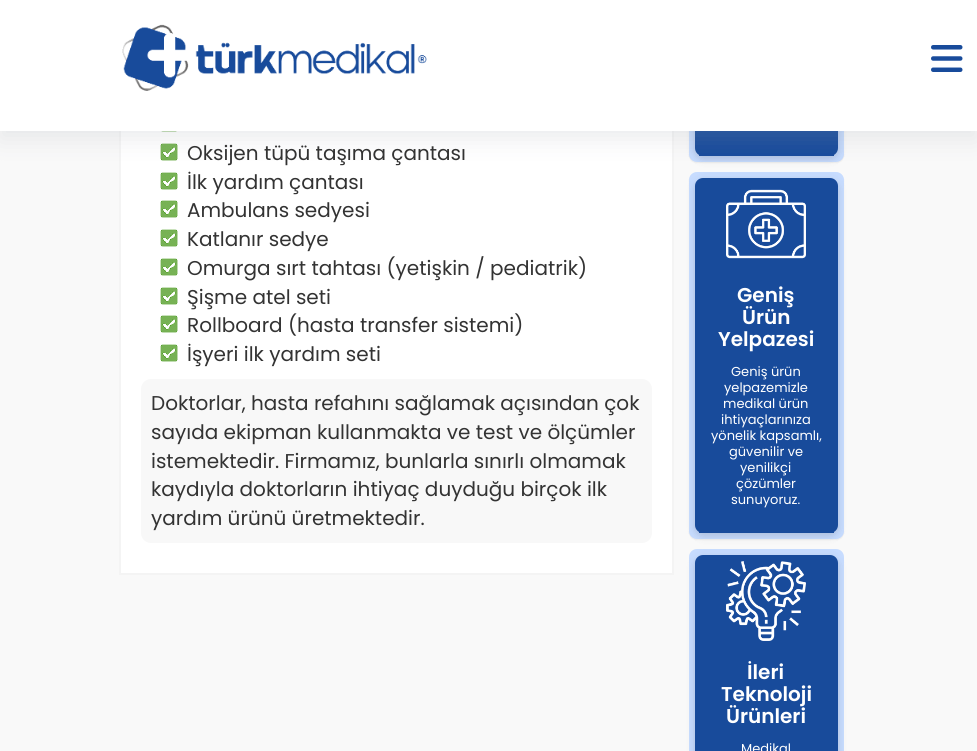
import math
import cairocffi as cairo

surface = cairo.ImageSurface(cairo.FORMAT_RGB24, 977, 751)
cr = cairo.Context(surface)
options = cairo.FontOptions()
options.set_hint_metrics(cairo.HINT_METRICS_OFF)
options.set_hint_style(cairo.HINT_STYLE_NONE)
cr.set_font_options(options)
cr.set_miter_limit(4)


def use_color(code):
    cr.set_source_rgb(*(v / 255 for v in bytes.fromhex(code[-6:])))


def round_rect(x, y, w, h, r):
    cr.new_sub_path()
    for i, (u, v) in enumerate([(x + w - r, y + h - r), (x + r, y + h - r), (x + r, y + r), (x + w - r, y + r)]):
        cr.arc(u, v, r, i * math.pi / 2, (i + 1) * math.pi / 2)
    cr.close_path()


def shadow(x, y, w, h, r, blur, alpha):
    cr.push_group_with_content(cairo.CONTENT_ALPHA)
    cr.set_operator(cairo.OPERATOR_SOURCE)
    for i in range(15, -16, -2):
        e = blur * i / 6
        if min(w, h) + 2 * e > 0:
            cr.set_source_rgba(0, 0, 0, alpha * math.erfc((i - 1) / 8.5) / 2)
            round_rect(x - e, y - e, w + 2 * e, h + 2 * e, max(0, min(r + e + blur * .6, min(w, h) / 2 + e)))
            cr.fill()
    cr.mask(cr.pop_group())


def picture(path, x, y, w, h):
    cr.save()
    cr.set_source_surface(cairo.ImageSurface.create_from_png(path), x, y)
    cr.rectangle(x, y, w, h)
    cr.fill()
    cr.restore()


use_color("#f9f9f9")
cr.paint()
use_color("#ffffff")
cr.rectangle(121, 131, 551, 442)
cr.fill()
cr.rectangle(120, -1, 553, 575)
use_color("#f4f4f4")
cr.stroke()
picture("img3.png", 160, 131, 18, 1)
picture("img4.png", 160, 143, 18, 18)
picture("img4.png", 160, 172, 18, 18)
use_color("#000000")
shadow(689, -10, 155, 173, 8, 0.5, 0.05)
use_color("#c7dcff")
round_rect(689, -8, 155, 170, 8)
cr.fill()
use_color("#323232")
shadow(695, -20, 143, 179, 8, 4, 0.18)
use_color("#184b9b")
round_rect(695, -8, 143, 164, 8)
cr.fill()
cr.rectangle(699, 155, 135, 1)
cr.fill()
use_color("#000000")
shadow(689, 173, 155, 367, 8, 0.5, 0.05)
use_color("#c7dcff")
round_rect(689, 172, 155, 367, 8)
cr.fill()
use_color("#959da5")
shadow(0, 8, 977, 131, 0, 12, 0.2)
use_color("#ffffff")
cr.rectangle(0, 0, 977, 131)
cr.fill()
picture("img1.png", 122, 24, 305, 67)
picture("img2.png", 931, 45, 32, 27)
cr.select_font_face("Poppins")
cr.set_font_size(20)
use_color("#333333")
cr.move_to(187, 160)
cr.show_text("Oksijen tüpü taşıma çantası")
cr.move_to(187, 189)
cr.show_text("İlk yardım çantası")
picture("img4.png", 160, 200, 18, 18)
cr.move_to(187, 217)
cr.show_text("Ambulans sedyesi")
picture("img4.png", 160, 229, 18, 18)
cr.move_to(187, 246)
cr.show_text("Katlanır sedye")
picture("img4.png", 160, 258, 18, 18)
cr.move_to(187, 275)
cr.show_text("Omurga sırt tahtası (yetişkin / pediatrik)")
picture("img4.png", 160, 287, 18, 18)
cr.move_to(187, 304)
cr.show_text("Şişme atel seti")
picture("img4.png", 160, 315, 18, 18)
cr.move_to(187, 332)
cr.show_text("Rollboard (hasta transfer sistemi)")
picture("img4.png", 160, 344, 18, 18)
cr.move_to(187, 361)
cr.show_text("İşyeri ilk yardım seti")
use_color("#f8f8f8")
round_rect(141, 379, 511, 164, 10)
cr.fill()
use_color("#333333")
cr.move_to(151, 410)
cr.show_text("Doktorlar, hasta refahını sağlamak açısından çok")
cr.move_to(151, 439)
cr.show_text("sayıda ekipman kullanmakta ve test ve ölçümler")
cr.move_to(151, 468)
cr.show_text("istemektedir. Firmamız, bunlarla sınırlı olmamak")
cr.move_to(151, 496)
cr.show_text("kaydıyla doktorların ihtiyaç duyduğu birçok ilk")
cr.move_to(151, 525)
cr.show_text("yardım ürünü üretmektedir.")
use_color("#323232")
shadow(695, 181, 143, 355, 8, 4, 0.18)
use_color("#184b9b")
round_rect(695, 178, 143, 355, 8)
cr.fill()
cr.rectangle(699, 532, 135, 1)
cr.fill()
picture("img5.png", 726, 189, 80, 70)
cr.select_font_face("Poppins SemiBold")
use_color("#ffffff")
cr.move_to(737, 302)
cr.show_text("Geniş")
cr.move_to(742, 324)
cr.show_text("Ürün")
cr.move_to(718, 346)
cr.show_text("Yelpazesi")
cr.select_font_face("Poppins")
cr.set_font_size(13)
cr.move_to(731, 376)
cr.show_text("Geniş ürün")
cr.move_to(724, 392)
cr.show_text("yelpazemizle")
cr.move_to(723, 408)
cr.show_text("medikal ürün")
cr.move_to(721, 424)
cr.show_text("ihtiyaçlarınıza")
cr.move_to(711, 440)
cr.show_text("yönelik kapsamlı,")
cr.move_to(729, 456)
cr.show_text("güvenilir ve")
cr.move_to(740, 472)
cr.show_text("yenilikçi")
cr.move_to(736, 488)
cr.show_text("çözümler")
cr.move_to(731, 504)
cr.show_text("sunuyoruz.")
use_color("#c7dcff")
round_rect(689, 549, 155, 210, 8)
cr.fill()
use_color("#323232")
shadow(695, 558, 143, 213, 8, 4, 0.18)
use_color("#184b9b")
round_rect(695, 555, 143, 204, 8)
cr.fill()
picture("img6.png", 726, 561, 80, 80)
cr.select_font_face("Poppins SemiBold")
cr.set_font_size(20)
use_color("#ffffff")
cr.move_to(747, 679)
cr.show_text("İleri")
cr.move_to(721, 701)
cr.show_text("Teknoloji")
cr.move_to(726, 723)
cr.show_text("Ürünleri")
cr.select_font_face("Poppins")
cr.set_font_size(13)
cr.move_to(741, 753)
cr.show_text("Medikal")
surface.write_to_png("result.png")
